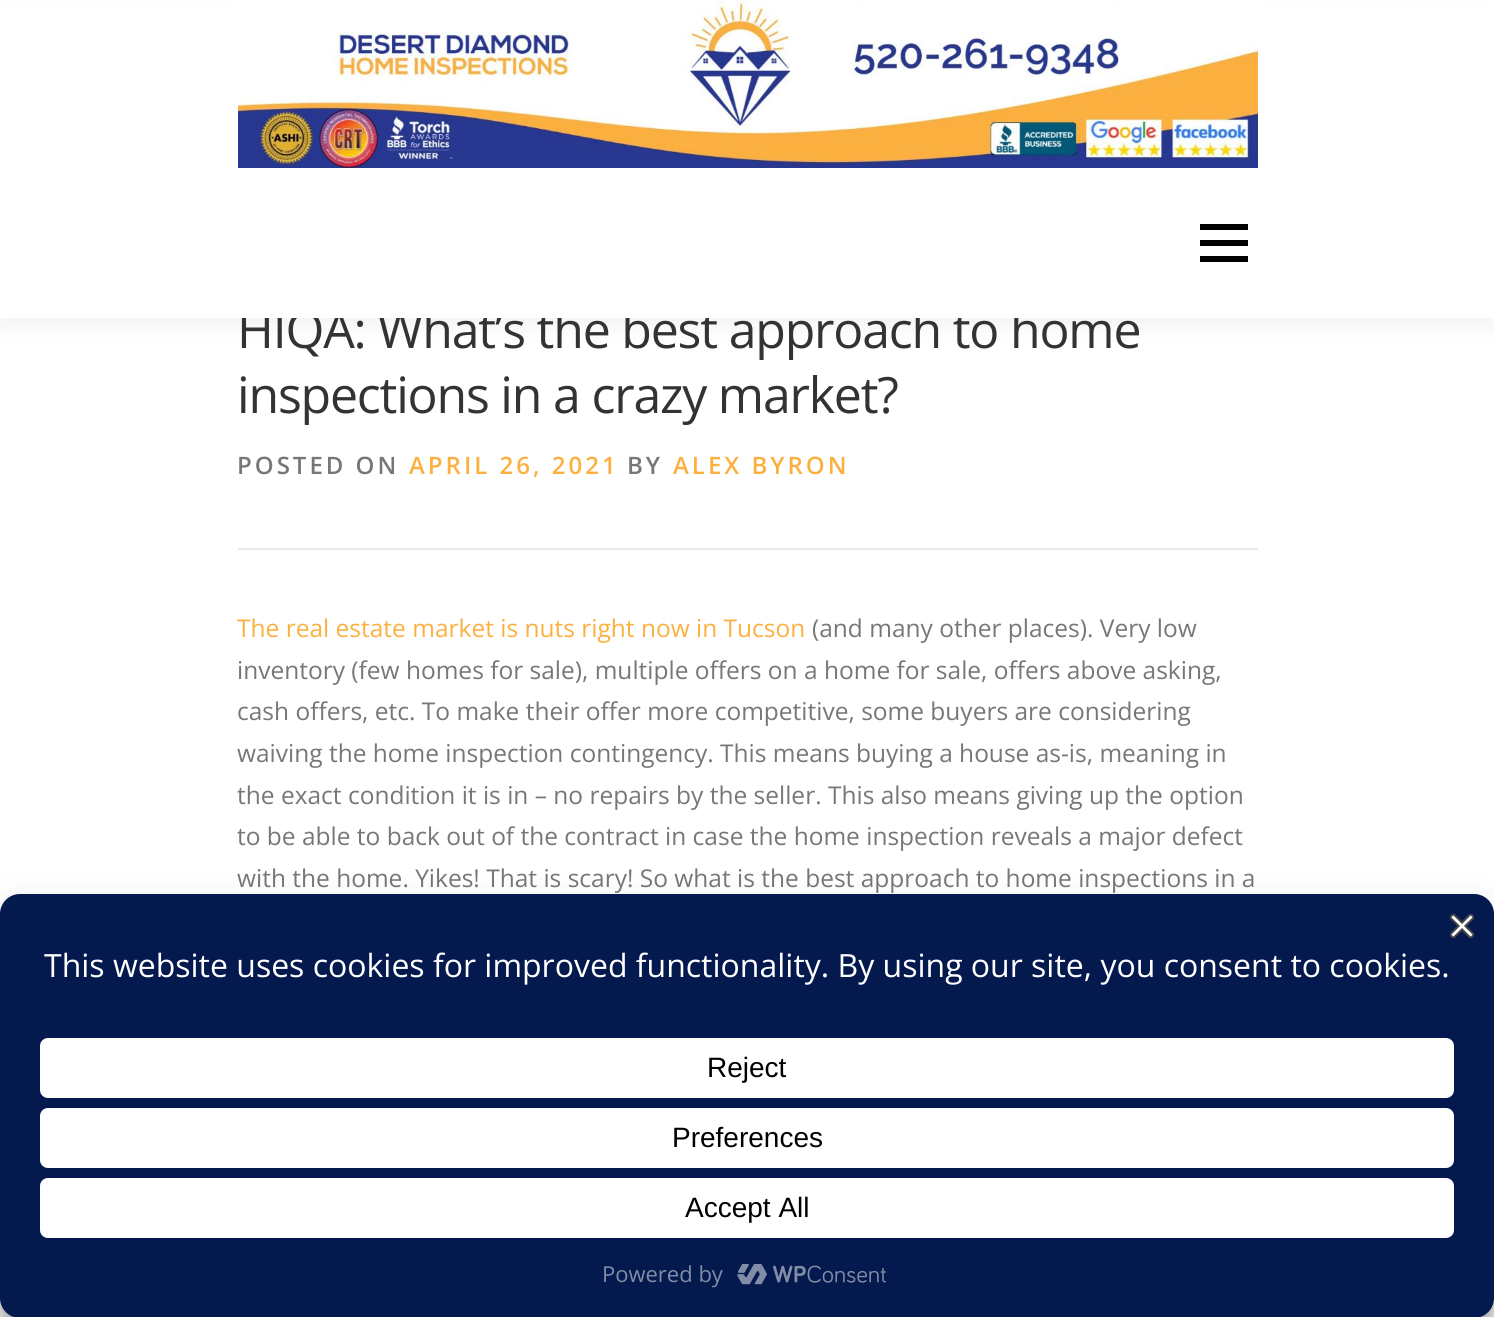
import math
import cairocffi as cairo

surface = cairo.ImageSurface(cairo.FORMAT_RGB24, 1494, 1317)
cr = cairo.Context(surface)
options = cairo.FontOptions()
options.set_hint_metrics(cairo.HINT_METRICS_OFF)
options.set_hint_style(cairo.HINT_STYLE_NONE)
cr.set_font_options(options)
cr.set_miter_limit(4)


def use_color(code):
    cr.set_source_rgb(*(v / 255 for v in bytes.fromhex(code[-6:])))


def spaced_text(x, y, s, letter, word):
    cr.move_to(x, y)
    for ch in s:
        cr.show_text(ch)
        cr.rel_move_to(letter + word * (ch == ' '), 0)


def round_rect(x, y, w, h, r):
    cr.new_sub_path()
    for i, (u, v) in enumerate([(x + w - r, y + h - r), (x + r, y + h - r), (x + r, y + r), (x + w - r, y + r)]):
        cr.arc(u, v, r, i * math.pi / 2, (i + 1) * math.pi / 2)
    cr.close_path()


def shadow(x, y, w, h, r, blur, alpha):
    cr.push_group_with_content(cairo.CONTENT_ALPHA)
    cr.set_operator(cairo.OPERATOR_SOURCE)
    for i in range(15, -16, -2):
        e = blur * i / 6
        if min(w, h) + 2 * e > 0:
            cr.set_source_rgba(0, 0, 0, alpha * math.erfc((i - 1) / 8.5) / 2)
            round_rect(x - e, y - e, w + 2 * e, h + 2 * e, max(0, min(r + e + blur * .6, min(w, h) / 2 + e)))
            cr.fill()
    cr.mask(cr.pop_group())


def picture(path, x, y, w, h):
    cr.save()
    cr.set_source_surface(cairo.ImageSurface.create_from_png(path), x, y)
    cr.rectangle(x, y, w, h)
    cr.fill()
    cr.restore()


use_color("#ffffff")
cr.paint()
use_color("#323232")
shadow(0, 10, 1494, 318, 0, 10, 0.06)
cr.select_font_face("Open Sans")
cr.set_font_size(50)
use_color("#333333")
spaced_text(237, 348, "HIQA: What’s the best approach to home", -1.2, 0)
use_color("#ffffff")
cr.rectangle(0, 2, 1494, 316)
cr.fill()
picture("img1.png", 238, 0, 1020, 168)
use_color("#000000")
cr.rectangle(1200, 240, 48, 6)
cr.fill()
cr.rectangle(1200, 224, 48, 6)
cr.fill()
cr.rectangle(1200, 256, 48, 6)
cr.fill()
use_color("#333333")
spaced_text(237, 413, "inspections in a crazy market?", -1.2, 0)
use_color("#e9e9e9")
cr.rectangle(238, 548, 1020, 2)
cr.fill()
cr.select_font_face("Open Sans SemiBold")
cr.set_font_size(24)
use_color("#777777")
spaced_text(237, 474, "POSTED ON", 3, 0)
use_color("#fcb040")
spaced_text(409, 474, "APRIL 26, 2021", 3, 0)
use_color("#777777")
spaced_text(627, 474, "BY", 3, 0)
use_color("#fcb040")
spaced_text(673, 474, "ALEX BYRON", 3, 0)
cr.select_font_face("Open Sans")
cr.set_font_size(24.5)
cr.move_to(237, 637)
cr.show_text("The real estate market is nuts right now in Tucson")
use_color("#777777")
cr.move_to(812, 637)
cr.show_text("(and many other places). Very low")
cr.move_to(237, 679)
cr.show_text("inventory (few homes for sale), multiple offers on a home for sale, offers above asking,")
cr.move_to(237, 720)
cr.show_text("cash offers, etc. To make their offer more competitive, some buyers are considering")
cr.move_to(237, 762)
cr.show_text("waiving the home inspection contingency. This means buying a house as-is, meaning in")
cr.move_to(237, 804)
cr.show_text("the exact condition it is in – no repairs by the seller. This also means giving up the option")
cr.move_to(237, 845)
cr.show_text("to be able to back out of the contract in case the home inspection reveals a major defect")
cr.move_to(237, 887)
cr.show_text("with the home. Yikes! That is scary! So what is the best approach to home inspections in a")
use_color("#000000")
shadow(0, 906, 1494, 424, 20, 6, 0.23)
shadow(0, 914, 1494, 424, 20, 20, 0.19)
use_color("#808080")
shadow(1354, 1170, 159, 120, 4, 5, 1)
use_color("#04194e")
round_rect(0, 894, 1494, 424, 20)
cr.fill()
picture("img2.png", 1450, 914, 24, 24)
cr.set_font_size(32)
use_color("#ffffff")
cr.move_to(44, 977)
cr.show_text("This website uses cookies for improved functionality. By using our site, you consent to cookies.")
round_rect(40, 1038, 1414, 60, 8)
cr.fill()
cr.select_font_face("Liberation Sans")
cr.set_font_size(28)
use_color("#000000")
cr.move_to(707, 1077)
cr.show_text("Reject")
use_color("#ffffff")
round_rect(40, 1108, 1414, 60, 8)
cr.fill()
use_color("#000000")
cr.move_to(672, 1147)
cr.show_text("Preferences")
use_color("#ffffff")
round_rect(40, 1178, 1414, 60, 8)
cr.fill()
use_color("#000000")
cr.move_to(685, 1217)
cr.show_text("Accept All")
cr.select_font_face("Open Sans")
cr.set_font_size(22)
use_color("#828ca7")
cr.move_to(602, 1282)
cr.show_text("Powered by")
picture("img3.png", 737, 1263, 149, 22)
surface.write_to_png("result.png")
